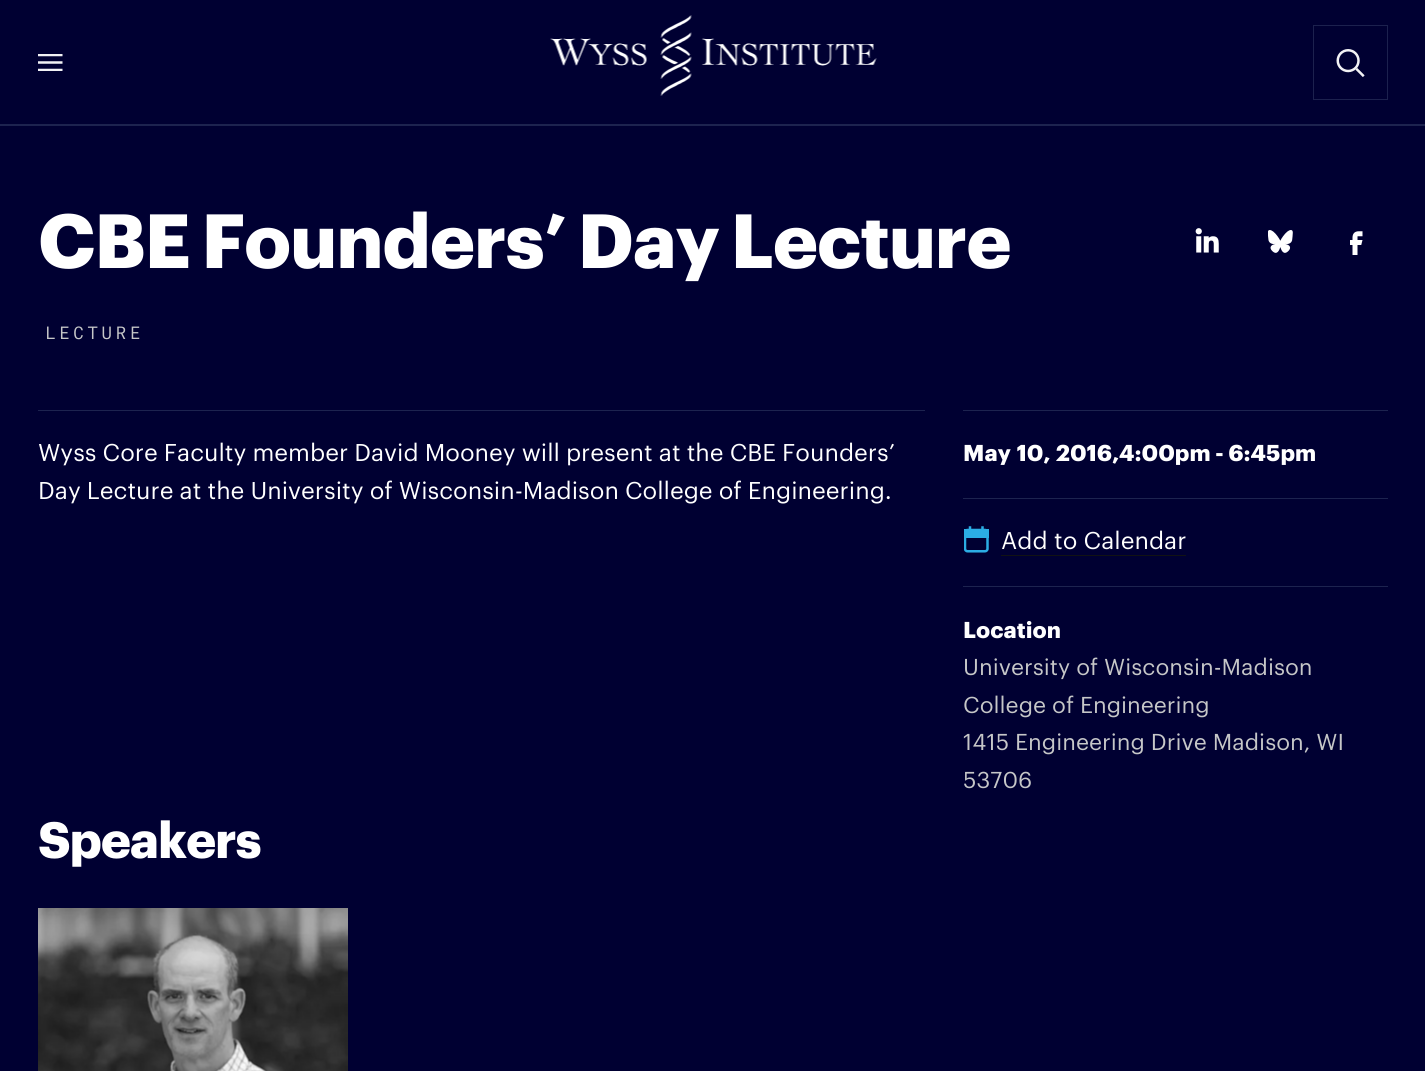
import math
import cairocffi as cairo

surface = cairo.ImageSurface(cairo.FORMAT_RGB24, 1425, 1071)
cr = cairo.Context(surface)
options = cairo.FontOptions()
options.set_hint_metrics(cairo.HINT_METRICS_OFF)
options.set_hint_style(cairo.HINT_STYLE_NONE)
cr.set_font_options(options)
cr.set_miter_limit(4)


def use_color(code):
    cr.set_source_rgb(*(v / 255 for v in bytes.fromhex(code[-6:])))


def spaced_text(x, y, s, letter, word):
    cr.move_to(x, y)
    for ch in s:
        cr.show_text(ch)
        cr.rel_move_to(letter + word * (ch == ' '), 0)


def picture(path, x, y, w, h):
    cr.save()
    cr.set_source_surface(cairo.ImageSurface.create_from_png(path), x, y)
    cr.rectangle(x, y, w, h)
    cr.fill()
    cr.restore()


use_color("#000032")
cr.paint()
picture("img1.png", 38, 54, 25, 17)
picture("img2.png", 550, 15, 327, 81)
picture("img3.png", 1336, 49, 29, 28)
cr.rectangle(1313.5, 25.5, 74, 74)
use_color("#1c214e")
cr.set_line_width(1)
cr.stroke()
use_color("#1d234f")
cr.rectangle(0, 124, 1425, 2)
cr.fill()
cr.rectangle(38, 410, 1350, 1)
cr.fill()
cr.select_font_face("Graphik", cairo.FONT_SLANT_NORMAL, cairo.FONT_WEIGHT_BOLD)
cr.set_font_size(75)
use_color("#ffffff")
spaced_text(38, 268, "CBE Founders’ Day Lecture", -1.25, -2)
picture("img4.png", 1195, 228, 24, 25)
picture("img5.png", 1268, 230, 25, 23)
picture("img6.png", 1350, 231, 13, 24)
cr.select_font_face("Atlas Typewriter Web")
cr.set_font_size(16.25)
use_color("#c6c7c8")
spaced_text(45, 339, "LECTURE", 3.75, 0)
use_color("#000032")
cr.rectangle(925, 410, 38, 1)
cr.fill()
cr.select_font_face("Graphik")
cr.set_font_size(23.75)
use_color("#ffffff")
spaced_text(38, 461, "Wyss Core Faculty member David Mooney will present at the CBE Founders’", 0, -0.25)
spaced_text(38, 499, "Day Lecture at the University of Wisconsin-Madison College of Engineering.", 0, -0.25)
cr.select_font_face("Graphik", cairo.FONT_SLANT_NORMAL, cairo.FONT_WEIGHT_BOLD)
cr.set_font_size(22.5)
spaced_text(963, 461, "May 10, 2016,", 0, 1)
cr.move_to(1119, 461)
cr.show_text("4:00pm - 6:45pm")
use_color("#1d234f")
cr.rectangle(963, 498, 425, 1)
cr.fill()
picture("img7.png", 964, 526, 25, 27)
cr.select_font_face("Graphik")
cr.set_font_size(23.75)
use_color("#ffffff")
cr.move_to(1001, 549)
cr.show_text("Add to Calendar")
use_color("#121314")
cr.rectangle(1001, 555, 185, 1)
cr.fill()
use_color("#1d234f")
cr.rectangle(963, 586, 425, 1)
cr.fill()
cr.select_font_face("Graphik", cairo.FONT_SLANT_NORMAL, cairo.FONT_WEIGHT_BOLD)
cr.set_font_size(22.5)
use_color("#ffffff")
cr.move_to(963, 638)
cr.show_text("Location")
cr.select_font_face("Graphik")
use_color("#c6c7c8")
cr.move_to(963, 675)
cr.show_text("University of Wisconsin-Madison")
cr.move_to(963, 713)
cr.show_text("College of Engineering")
cr.move_to(963, 750)
cr.show_text("1415 Engineering Drive Madison, WI")
cr.move_to(963, 788)
cr.show_text("53706")
cr.select_font_face("Graphik", cairo.FONT_SLANT_NORMAL, cairo.FONT_WEIGHT_BOLD)
cr.set_font_size(50)
use_color("#ffffff")
spaced_text(38, 858, "Speakers", -1.25, 0)
picture("img8.png", 38, 908, 310, 163)
surface.write_to_png("result.png")
